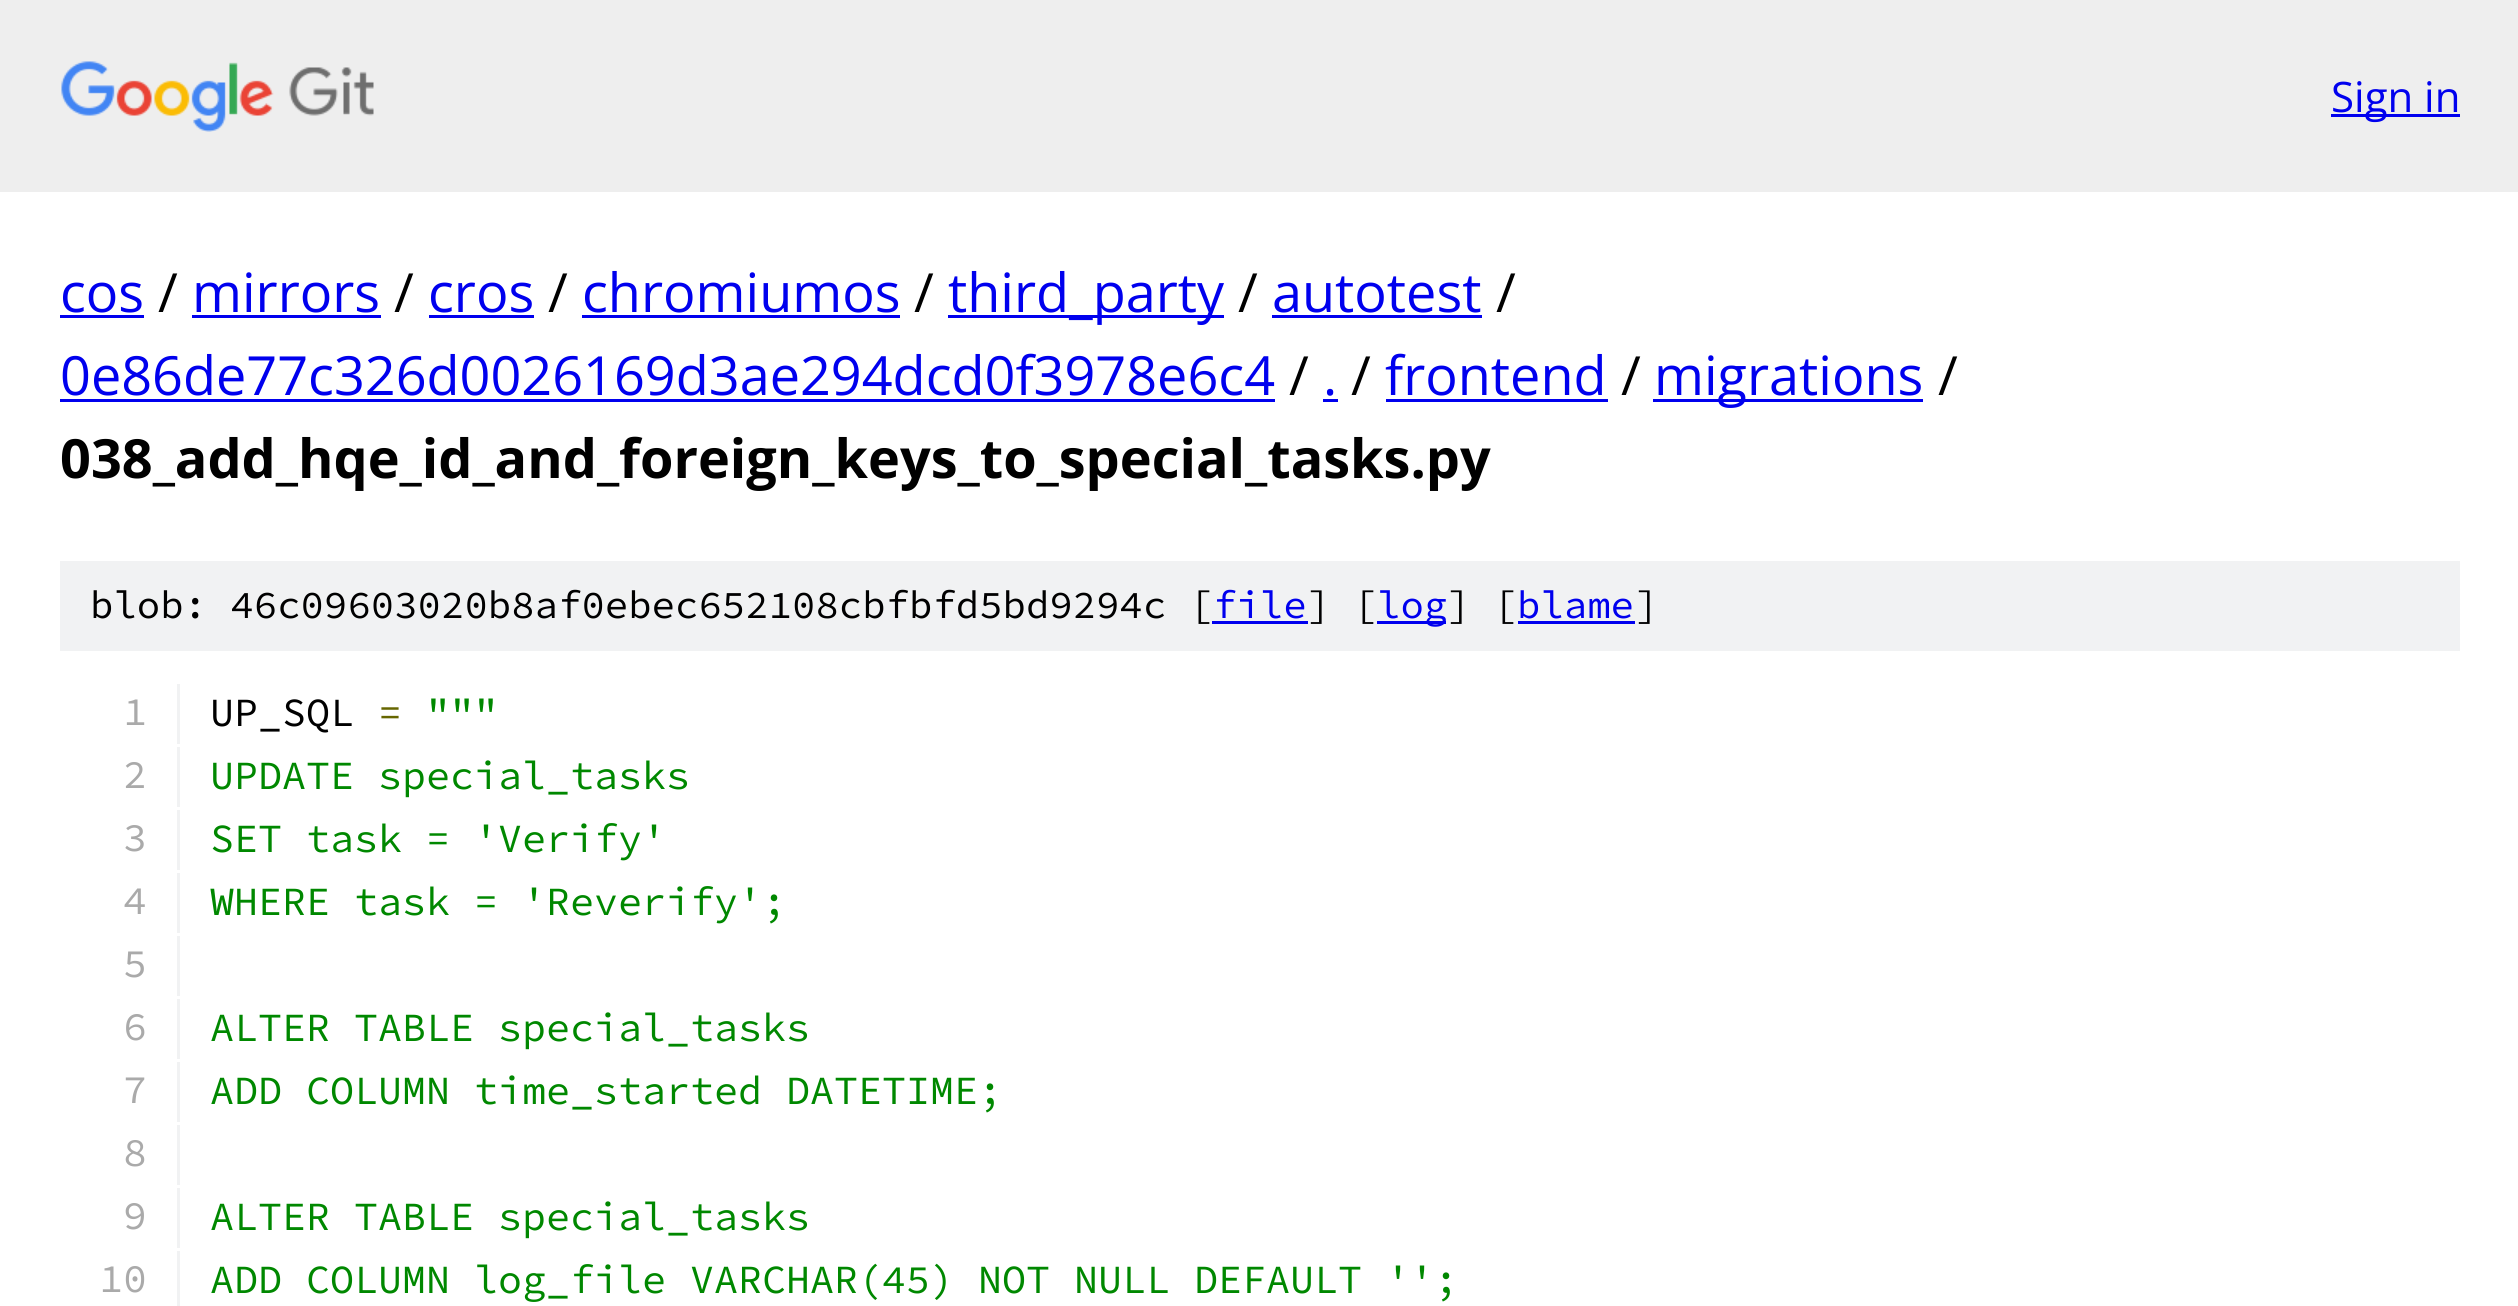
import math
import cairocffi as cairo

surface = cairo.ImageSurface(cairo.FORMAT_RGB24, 2518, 1306)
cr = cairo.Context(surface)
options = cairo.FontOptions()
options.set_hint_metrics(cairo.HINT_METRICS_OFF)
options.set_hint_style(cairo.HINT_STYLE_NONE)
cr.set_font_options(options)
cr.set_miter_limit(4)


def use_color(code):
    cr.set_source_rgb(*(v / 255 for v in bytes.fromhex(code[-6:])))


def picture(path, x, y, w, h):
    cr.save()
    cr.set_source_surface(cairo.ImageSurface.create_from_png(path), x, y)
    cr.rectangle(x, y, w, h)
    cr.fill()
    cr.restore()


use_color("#ffffff")
cr.paint()
use_color("#eeeeee")
cr.rectangle(0, 0, 2518, 192)
cr.fill()
picture("img1.png", 61, 61, 313, 71)
use_color("#0000ee")
cr.rectangle(2331, 114, 129, 3)
cr.fill()
cr.select_font_face("Open Sans")
cr.set_font_size(42)
cr.move_to(2331, 112)
cr.show_text("Sign in")
cr.set_font_size(54)
cr.move_to(60, 312)
cr.show_text("cos")
cr.rectangle(60, 315, 84, 3)
cr.fill()
use_color("#000000")
cr.move_to(158, 312)
cr.show_text("/")
use_color("#0000ee")
cr.move_to(192, 312)
cr.show_text("mirrors")
cr.rectangle(192, 315, 189, 3)
cr.fill()
use_color("#000000")
cr.move_to(394, 312)
cr.show_text("/")
use_color("#0000ee")
cr.move_to(428, 312)
cr.show_text("cros")
cr.rectangle(429, 315, 105, 3)
cr.fill()
use_color("#000000")
cr.move_to(548, 312)
cr.show_text("/")
use_color("#0000ee")
cr.move_to(582, 312)
cr.show_text("chromiumos")
cr.rectangle(582, 315, 318, 3)
cr.fill()
use_color("#000000")
cr.move_to(914, 312)
cr.show_text("/")
use_color("#0000ee")
cr.rectangle(948, 315, 276, 3)
cr.fill()
cr.move_to(948, 312)
cr.show_text("third_party")
use_color("#000000")
cr.move_to(1238, 312)
cr.show_text("/")
use_color("#0000ee")
cr.move_to(1272, 312)
cr.show_text("autotest")
cr.rectangle(1272, 315, 210, 3)
cr.fill()
use_color("#000000")
cr.move_to(1496, 312)
cr.show_text("/")
use_color("#0000ee")
cr.move_to(60, 395)
cr.show_text("0e86de77c326d0026169d3ae294dcd0f3978e6c4")
cr.rectangle(60, 399, 1215, 3)
cr.fill()
use_color("#000000")
cr.move_to(1289, 395)
cr.show_text("/")
use_color("#0000ee")
cr.move_to(1323, 395)
cr.show_text(".")
cr.rectangle(1323, 399, 15, 3)
cr.fill()
use_color("#000000")
cr.move_to(1351, 395)
cr.show_text("/")
use_color("#0000ee")
cr.move_to(1385, 395)
cr.show_text("frontend")
cr.rectangle(1386, 399, 222, 3)
cr.fill()
use_color("#000000")
cr.move_to(1621, 395)
cr.show_text("/")
use_color("#0000ee")
cr.rectangle(1653, 399, 270, 3)
cr.fill()
cr.move_to(1654, 395)
cr.show_text("migrations")
use_color("#000000")
cr.move_to(1938, 395)
cr.show_text("/")
cr.select_font_face("Open Sans", cairo.FONT_SLANT_NORMAL, cairo.FONT_WEIGHT_BOLD)
cr.move_to(60, 478)
cr.show_text("038_add_hqe_id_and_foreign_keys_to_special_tasks.py")
use_color("#f1f2f3")
cr.rectangle(60, 561, 2400, 90)
cr.fill()
cr.select_font_face("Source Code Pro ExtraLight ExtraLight")
cr.set_font_size(39)
use_color("#000000")
cr.move_to(90, 618)
cr.show_text("blob: 46c09603020b8af0ebec652108cbfbfd5bd9294c [")
use_color("#0000ee")
cr.move_to(1213, 618)
cr.show_text("file")
cr.rectangle(1212, 621, 96, 3)
cr.fill()
use_color("#000000")
cr.move_to(1307, 618)
cr.show_text("] [")
use_color("#0000ee")
cr.rectangle(1377, 621, 69, 3)
cr.fill()
cr.move_to(1377, 618)
cr.show_text("log")
use_color("#000000")
cr.move_to(1447, 618)
cr.show_text("] [")
use_color("#0000ee")
cr.move_to(1517, 618)
cr.show_text("blame")
cr.rectangle(1518, 621, 117, 3)
cr.fill()
use_color("#000000")
cr.move_to(1635, 618)
cr.show_text("]")
use_color("#f1f2f3")
cr.rectangle(177, 684, 3, 60)
cr.fill()
cr.set_font_size(40)
use_color("#aaaaaa")
cr.move_to(123, 725)
cr.show_text("1")
use_color("#000000")
cr.move_to(210, 726)
cr.show_text("UP_SQL")
use_color("#666600")
cr.move_to(378, 726)
cr.show_text("=")
use_color("#008800")
cr.move_to(426, 726)
cr.show_text("\"\"\"")
use_color("#f1f2f3")
cr.rectangle(177, 747, 3, 60)
cr.fill()
use_color("#aaaaaa")
cr.move_to(123, 788)
cr.show_text("2")
use_color("#008800")
cr.move_to(210, 789)
cr.show_text("UPDATE special_tasks")
use_color("#f1f2f3")
cr.rectangle(177, 810, 3, 60)
cr.fill()
use_color("#aaaaaa")
cr.move_to(123, 851)
cr.show_text("3")
use_color("#008800")
cr.move_to(210, 852)
cr.show_text("SET task = 'Verify'")
use_color("#f1f2f3")
cr.rectangle(177, 873, 3, 60)
cr.fill()
use_color("#aaaaaa")
cr.move_to(123, 914)
cr.show_text("4")
use_color("#008800")
cr.move_to(210, 915)
cr.show_text("WHERE task = 'Reverify';")
use_color("#f1f2f3")
cr.rectangle(177, 936, 3, 60)
cr.fill()
use_color("#aaaaaa")
cr.move_to(123, 977)
cr.show_text("5")
use_color("#f1f2f3")
cr.rectangle(177, 999, 3, 60)
cr.fill()
use_color("#aaaaaa")
cr.move_to(123, 1040)
cr.show_text("6")
use_color("#008800")
cr.move_to(210, 1041)
cr.show_text("ALTER TABLE special_tasks")
use_color("#f1f2f3")
cr.rectangle(177, 1062, 3, 60)
cr.fill()
use_color("#aaaaaa")
cr.move_to(123, 1103)
cr.show_text("7")
use_color("#008800")
cr.move_to(210, 1104)
cr.show_text("ADD COLUMN time_started DATETIME;")
use_color("#f1f2f3")
cr.rectangle(177, 1125, 3, 60)
cr.fill()
use_color("#aaaaaa")
cr.move_to(123, 1166)
cr.show_text("8")
use_color("#f1f2f3")
cr.rectangle(177, 1188, 3, 60)
cr.fill()
use_color("#aaaaaa")
cr.move_to(123, 1229)
cr.show_text("9")
use_color("#008800")
cr.move_to(210, 1230)
cr.show_text("ALTER TABLE special_tasks")
use_color("#f1f2f3")
cr.rectangle(177, 1251, 3, 55)
cr.fill()
use_color("#aaaaaa")
cr.move_to(99, 1292)
cr.show_text("10")
use_color("#008800")
cr.move_to(210, 1293)
cr.show_text("ADD COLUMN log_file VARCHAR(45) NOT NULL DEFAULT '';")
surface.write_to_png("result.png")
